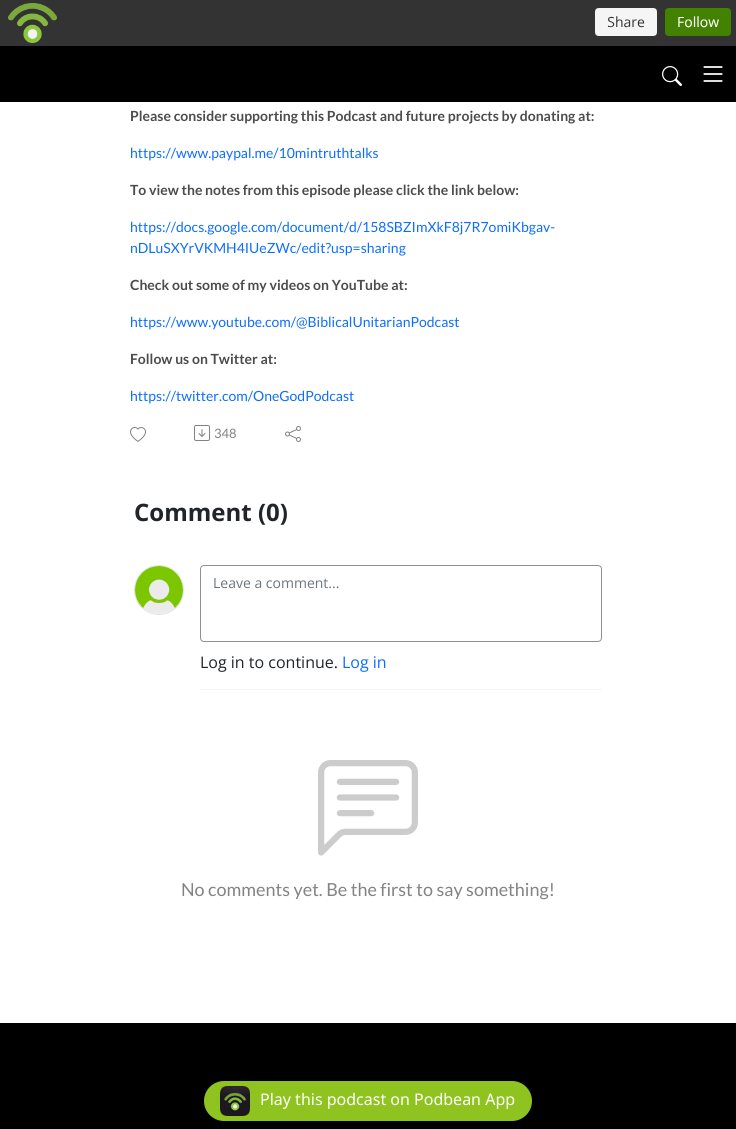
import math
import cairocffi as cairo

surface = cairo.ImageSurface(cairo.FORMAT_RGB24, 736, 1129)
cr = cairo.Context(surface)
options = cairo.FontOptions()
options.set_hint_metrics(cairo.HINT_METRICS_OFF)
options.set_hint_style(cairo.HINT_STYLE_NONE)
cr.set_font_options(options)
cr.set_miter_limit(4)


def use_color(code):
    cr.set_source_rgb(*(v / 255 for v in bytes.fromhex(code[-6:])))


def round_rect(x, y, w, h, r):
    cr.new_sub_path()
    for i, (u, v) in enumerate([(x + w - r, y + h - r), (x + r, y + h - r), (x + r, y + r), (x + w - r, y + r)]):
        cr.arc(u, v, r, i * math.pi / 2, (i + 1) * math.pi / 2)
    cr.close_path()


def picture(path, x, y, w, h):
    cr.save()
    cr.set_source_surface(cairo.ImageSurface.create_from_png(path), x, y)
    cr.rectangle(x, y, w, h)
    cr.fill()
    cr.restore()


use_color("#ffffff")
cr.paint()
use_color("#333333")
cr.rectangle(0, 0, 736, 46)
cr.fill()
picture("img1.png", 8, 3, 723, 40)
use_color("#000000")
cr.rectangle(0, 46, 736, 56)
cr.fill()
picture("img2.png", 662, 66, 20, 20)
picture("img3.png", 703, 66, 20, 16)
cr.select_font_face("Lato", cairo.FONT_SLANT_NORMAL, cairo.FONT_WEIGHT_BOLD)
cr.set_font_size(14)
use_color("#4c4c4c")
cr.move_to(130, 121)
cr.show_text("Please consider supporting this Podcast and future projects by donating at:")
cr.select_font_face("Lato")
use_color("#0d6efd")
cr.move_to(130, 158)
cr.show_text("https://www.paypal.me/10mintruthtalks")
cr.select_font_face("Lato", cairo.FONT_SLANT_NORMAL, cairo.FONT_WEIGHT_BOLD)
use_color("#4c4c4c")
cr.move_to(130, 195)
cr.show_text("To view the notes from this episode please click the link below:")
cr.select_font_face("Lato")
use_color("#0d6efd")
cr.move_to(130, 232)
cr.show_text("https://docs.google.com/document/d/158SBZImXkF8j7R7omiKbgav-")
cr.move_to(130, 253)
cr.show_text("nDLuSXYrVKMH4IUeZWc/edit?usp=sharing")
cr.select_font_face("Lato", cairo.FONT_SLANT_NORMAL, cairo.FONT_WEIGHT_BOLD)
use_color("#4c4c4c")
cr.move_to(130, 290)
cr.show_text("Check out some of my videos on YouTube at:")
cr.select_font_face("Lato")
use_color("#0d6efd")
cr.move_to(130, 327)
cr.show_text("https://www.youtube.com/@BiblicalUnitarianPodcast")
cr.select_font_face("Lato", cairo.FONT_SLANT_NORMAL, cairo.FONT_WEIGHT_BOLD)
use_color("#4c4c4c")
cr.move_to(130, 364)
cr.show_text("Follow us on Twitter at:")
cr.select_font_face("Lato")
use_color("#0d6efd")
cr.move_to(130, 401)
cr.show_text("https://twitter.com/OneGodPodcast")
picture("img4.png", 130, 427, 16, 15)
picture("img5.png", 194, 425, 16, 16)
cr.set_font_size(13)
use_color("#838383")
cr.move_to(214, 438)
cr.show_text("348")
picture("img6.png", 285, 426, 16, 16)
cr.select_font_face("Open Sans", cairo.FONT_SLANT_NORMAL, cairo.FONT_WEIGHT_BOLD)
cr.set_font_size(24)
use_color("#212529")
cr.move_to(134, 521)
cr.show_text("Comment (0)")
cr.new_path()
cr.arc(159, 590, 24.5, 0, 2 * math.pi)
use_color("#e3e3e3")
cr.set_line_width(1)
cr.stroke()
picture("img7.png", 135, 566, 48, 48)
use_color("#f5f5f5")
cr.rectangle(200, 689, 402, 1)
cr.fill()
round_rect(200.5, 565.5, 401, 76, 3.5)
use_color("#909090")
cr.stroke()
cr.select_font_face("Open Sans")
cr.set_font_size(14)
use_color("#6c757d")
cr.move_to(213, 588)
cr.show_text("Leave a comment...")
cr.set_font_size(16)
use_color("#212529")
cr.move_to(200, 668)
cr.show_text("Log in to continue.")
use_color("#0d6efd")
cr.move_to(342, 668)
cr.show_text("Log in")
picture("img8.png", 318, 760, 100, 96)
cr.select_font_face("Lato")
cr.set_font_size(18)
use_color("#838383")
cr.move_to(181, 896)
cr.show_text("No comments yet. Be the first to say something!")
use_color("#000000")
cr.rectangle(0, 1023, 736, 106)
cr.fill()
use_color("#8fc31f")
round_rect(204, 1081, 328, 40, 20)
cr.fill()
picture("img9.png", 220, 1086, 30, 30)
cr.select_font_face("Noto Sans")
cr.set_font_size(16)
use_color("#ffffff")
cr.move_to(260, 1105)
cr.show_text("Play this podcast on Podbean App")
surface.write_to_png("result.png")
